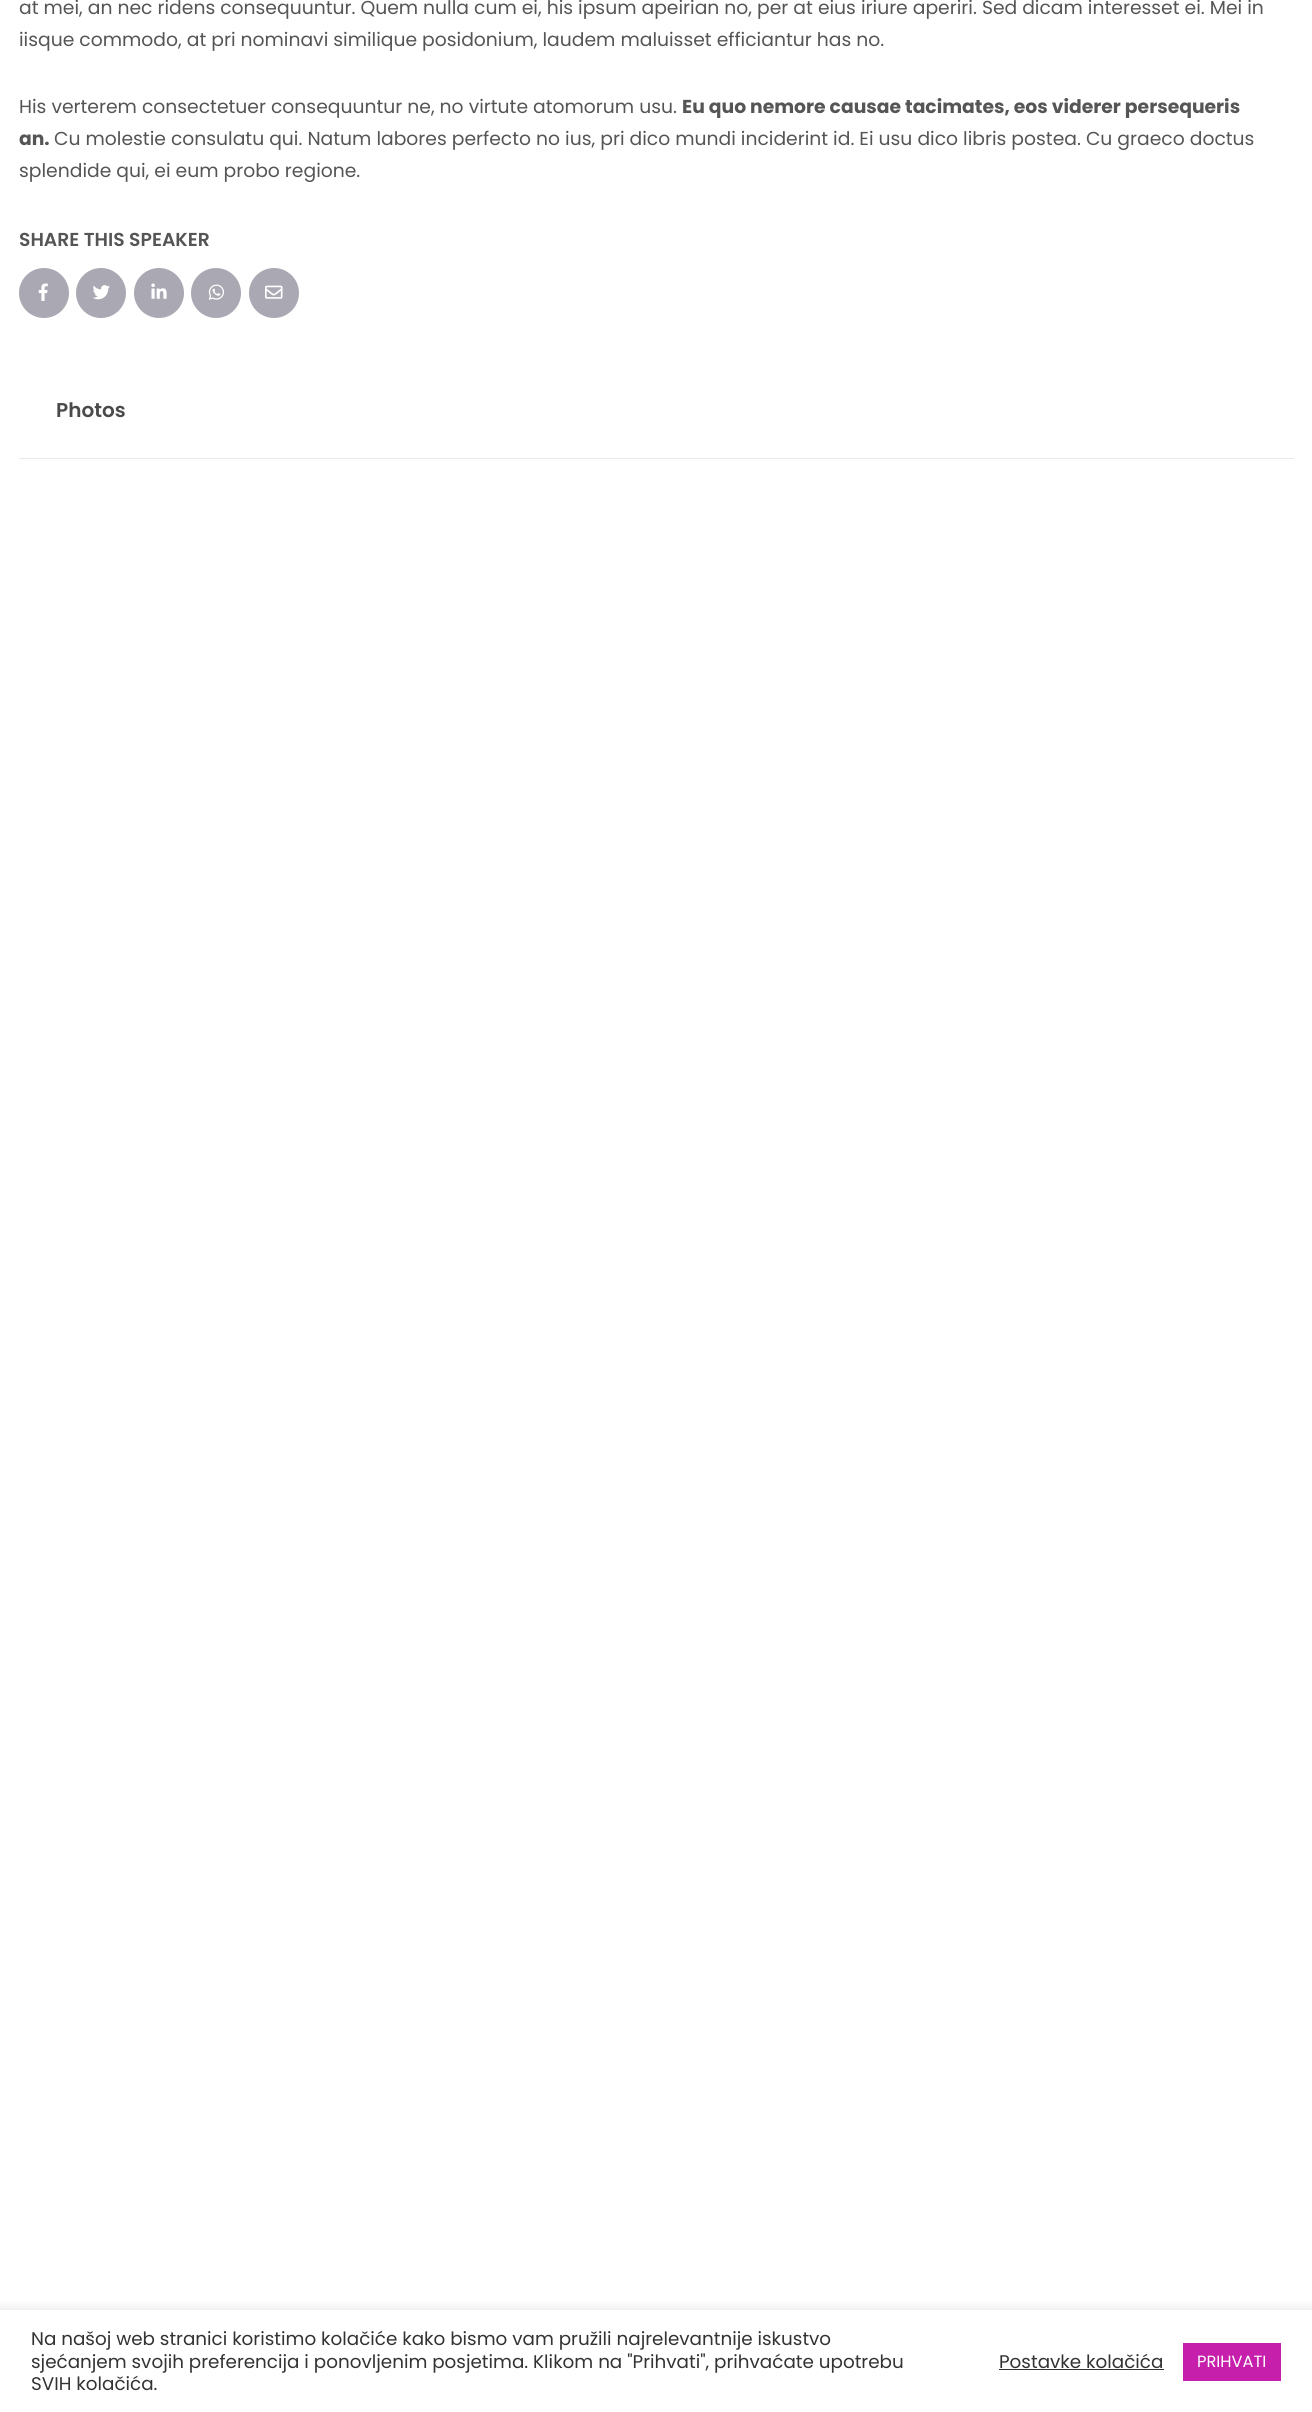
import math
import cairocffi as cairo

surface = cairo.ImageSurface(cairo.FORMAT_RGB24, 1312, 2412)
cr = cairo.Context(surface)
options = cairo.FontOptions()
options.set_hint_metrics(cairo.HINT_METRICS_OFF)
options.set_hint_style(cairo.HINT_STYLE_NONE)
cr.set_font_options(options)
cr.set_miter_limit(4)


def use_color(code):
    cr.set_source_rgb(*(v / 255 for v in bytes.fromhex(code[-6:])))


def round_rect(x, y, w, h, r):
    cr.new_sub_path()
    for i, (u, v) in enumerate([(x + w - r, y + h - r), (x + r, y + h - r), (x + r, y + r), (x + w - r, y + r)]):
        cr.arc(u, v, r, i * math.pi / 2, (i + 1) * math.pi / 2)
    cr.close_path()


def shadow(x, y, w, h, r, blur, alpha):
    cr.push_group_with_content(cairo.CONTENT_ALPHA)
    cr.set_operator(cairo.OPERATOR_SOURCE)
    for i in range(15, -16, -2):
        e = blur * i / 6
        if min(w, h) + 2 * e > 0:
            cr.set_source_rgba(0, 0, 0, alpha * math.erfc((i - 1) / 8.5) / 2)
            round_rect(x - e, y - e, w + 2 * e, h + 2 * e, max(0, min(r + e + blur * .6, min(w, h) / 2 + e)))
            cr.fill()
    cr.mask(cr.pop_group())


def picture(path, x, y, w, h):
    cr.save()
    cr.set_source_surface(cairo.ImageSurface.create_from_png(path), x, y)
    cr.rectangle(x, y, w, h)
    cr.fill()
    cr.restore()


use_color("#ffffff")
cr.paint()
cr.select_font_face("Poppins")
cr.set_font_size(18.75)
use_color("#555555")
cr.move_to(19, 14)
cr.show_text("at mei, an nec ridens consequuntur. Quem nulla cum ei, his ipsum apeirian no, per at eius iriure aperiri. Sed dicam interesset ei. Mei in")
cr.move_to(19, 46)
cr.show_text("iisque commodo, at pri nominavi similique posidonium, laudem maluisset efficiantur has no.")
cr.move_to(19, 113)
cr.show_text("His verterem consectetuer consequuntur ne, no virtute atomorum usu.")
cr.select_font_face("Poppins", cairo.FONT_SLANT_NORMAL, cairo.FONT_WEIGHT_BOLD)
cr.move_to(682, 113)
cr.show_text("Eu quo nemore causae tacimates, eos viderer persequeris")
cr.move_to(19, 145)
cr.show_text("an.")
cr.select_font_face("Poppins")
cr.move_to(54, 145)
cr.show_text("Cu molestie consulatu qui. Natum labores perfecto no ius, pri dico mundi inciderint id. Ei usu dico libris postea. Cu graeco doctus")
cr.move_to(19, 177)
cr.show_text("splendide qui, ei eum probo regione.")
cr.select_font_face("Poppins SemiBold")
cr.move_to(19, 246)
cr.show_text("SHARE THIS SPEAKER")
use_color("#a9a8b3")
cr.new_path()
cr.arc(44, 293, 25, 0, 2 * math.pi)
cr.fill()
picture("img1.png", 38, 283, 10, 18)
cr.arc(101, 293, 25, 0, 2 * math.pi)
cr.fill()
picture("img2.png", 92, 285, 18, 15)
cr.arc(159, 293, 25, 0, 2 * math.pi)
cr.fill()
picture("img3.png", 151, 283, 16, 16)
cr.arc(216, 293, 25, 0, 2 * math.pi)
cr.fill()
picture("img4.png", 208, 284, 16, 16)
cr.arc(274, 293, 25, 0, 2 * math.pi)
cr.fill()
picture("img5.png", 265, 285, 18, 14)
use_color("#eaeaea")
cr.rectangle(19, 458, 1275, 1)
cr.fill()
cr.set_font_size(20)
use_color("#4a4a4a")
cr.move_to(56, 417)
cr.show_text("Photos")
cr.save()
cr.rectangle(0, 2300, 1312, 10)
cr.clip()
use_color("#acabab")
shadow(0, 2309, 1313, 102, 0, 6, 0.3)
cr.restore()
cr.select_font_face("Poppins")
cr.set_font_size(18.35)
use_color("#333333")
cr.move_to(31, 2345)
cr.show_text("Na našoj web stranici koristimo kolačiće kako bismo vam pružili najrelevantnije iskustvo")
cr.move_to(31, 2368)
cr.show_text("sjećanjem svojih preferencija i ponovljenim posjetima. Klikom na \"Prihvati\", prihvaćate upotrebu")
cr.move_to(31, 2390)
cr.show_text("SVIH kolačića.")
cr.move_to(999, 2368)
cr.show_text("Postavke kolačića")
cr.rectangle(999, 2369, 165, 1)
cr.fill()
use_color("#c61fab")
cr.rectangle(1183, 2343, 98, 38)
cr.fill()
cr.set_font_size(16.25)
use_color("#ffffff")
cr.move_to(1197, 2367)
cr.show_text("PRIHVATI")
surface.write_to_png("result.png")
